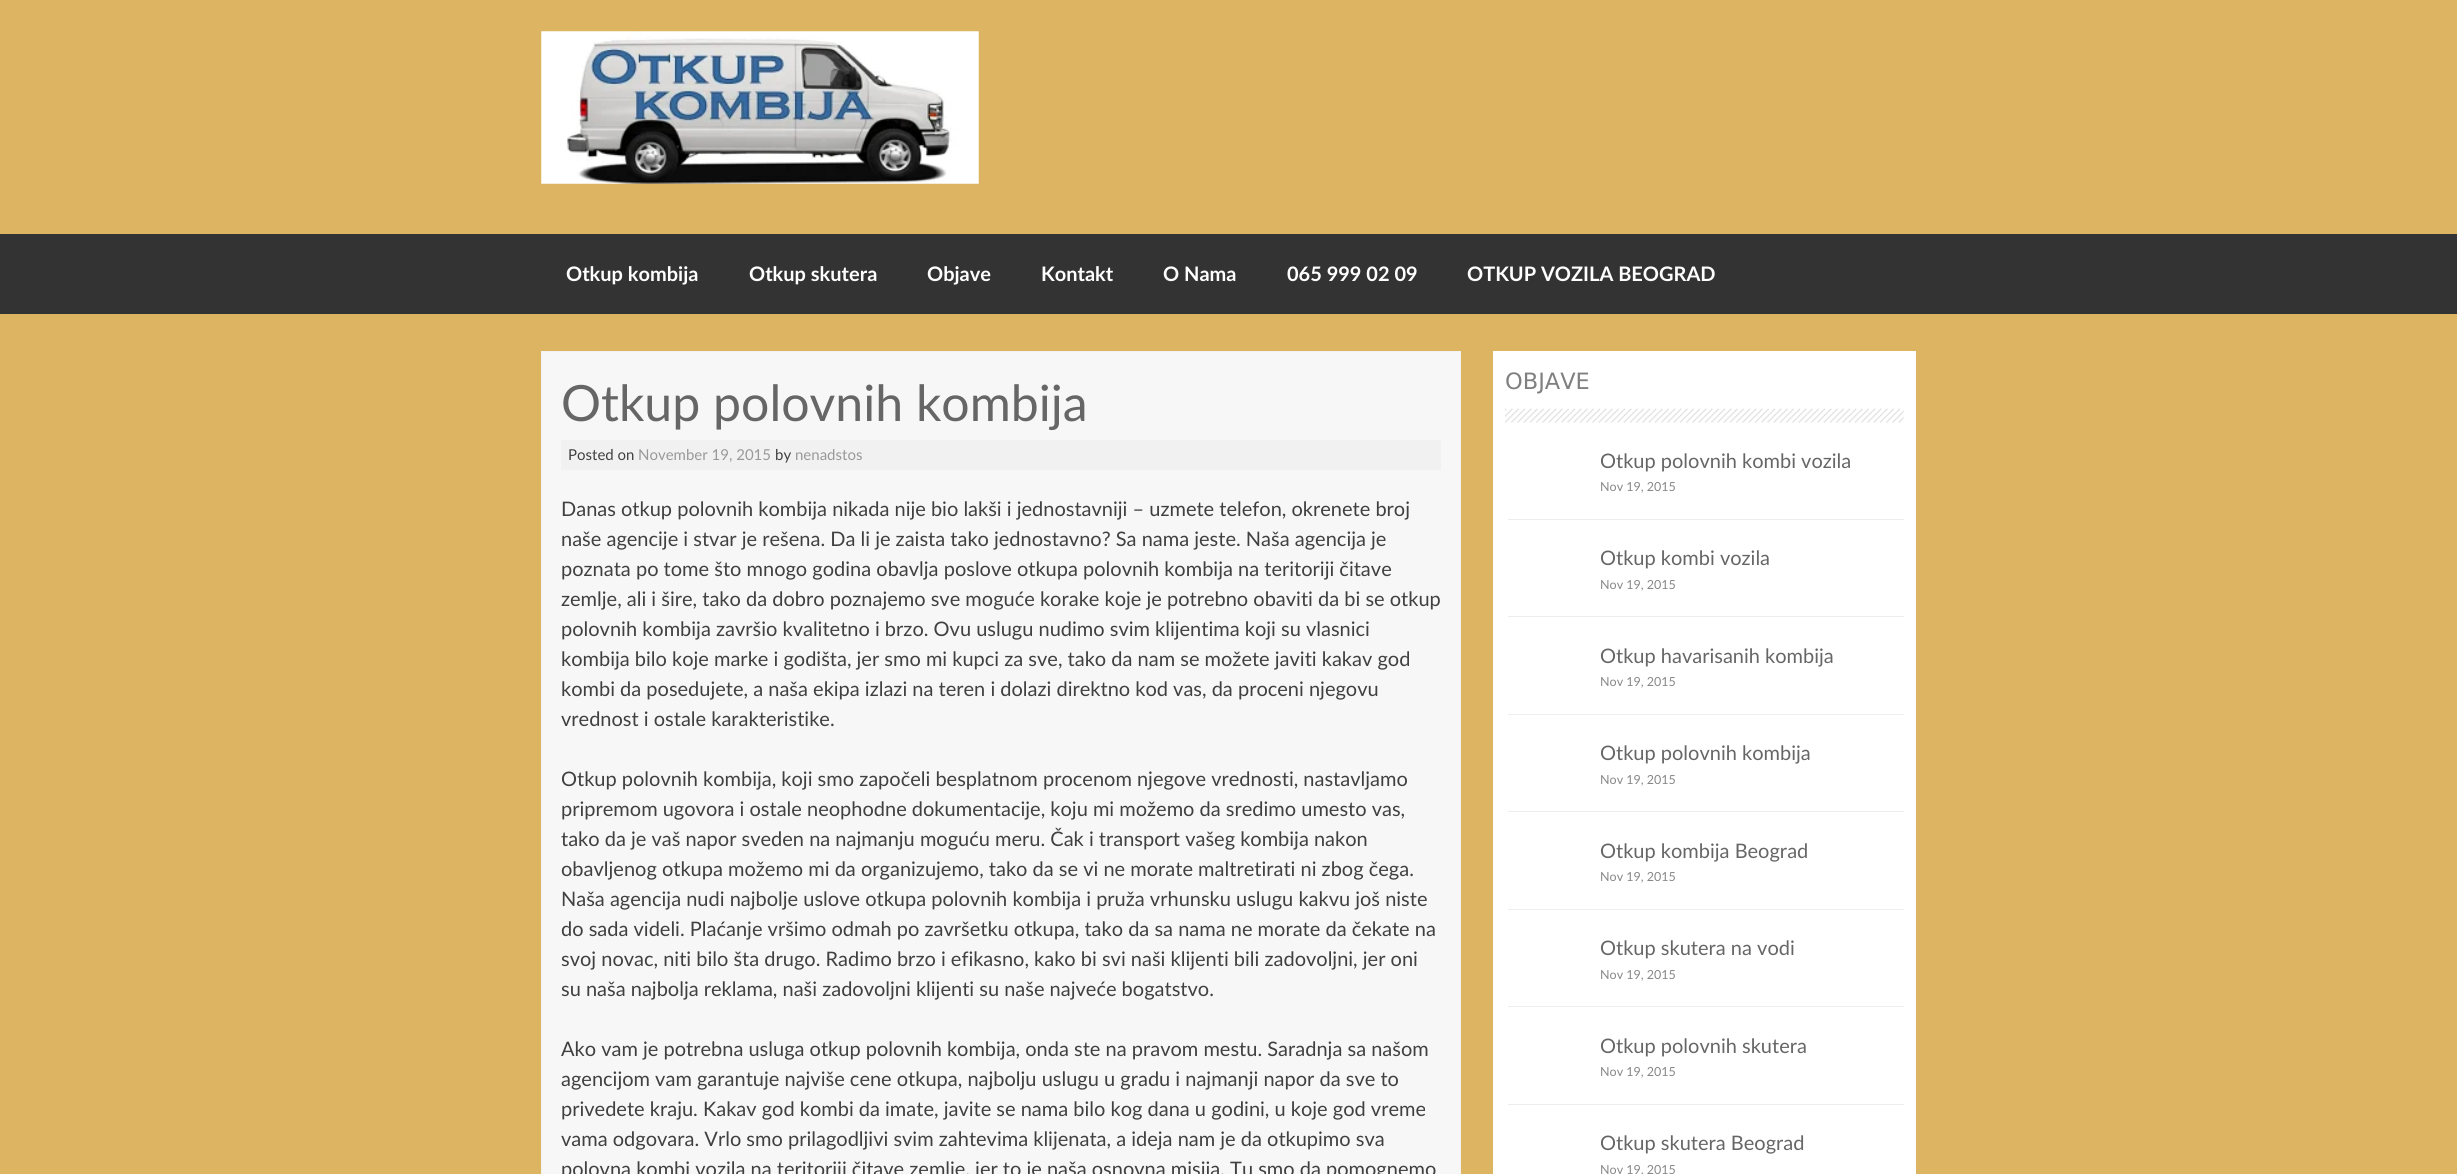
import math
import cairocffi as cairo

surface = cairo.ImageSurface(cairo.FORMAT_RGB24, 2457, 1174)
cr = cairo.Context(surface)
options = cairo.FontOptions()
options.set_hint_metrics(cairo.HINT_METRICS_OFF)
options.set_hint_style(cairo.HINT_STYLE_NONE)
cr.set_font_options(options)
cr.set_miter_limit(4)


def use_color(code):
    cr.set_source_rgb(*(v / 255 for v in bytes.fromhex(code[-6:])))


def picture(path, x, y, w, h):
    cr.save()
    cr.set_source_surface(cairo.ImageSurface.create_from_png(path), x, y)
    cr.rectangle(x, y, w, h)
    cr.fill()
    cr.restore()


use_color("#ddb461")
cr.paint()
picture("img1.png", 541, 31, 438, 153)
use_color("#333333")
cr.rectangle(0, 234, 2457, 80)
cr.fill()
cr.select_font_face("Lato", cairo.FONT_SLANT_NORMAL, cairo.FONT_WEIGHT_BOLD)
cr.set_font_size(20)
use_color("#ffffff")
cr.move_to(566, 281)
cr.show_text("Otkup kombija")
cr.move_to(749, 281)
cr.show_text("Otkup skutera")
cr.move_to(927, 281)
cr.show_text("Objave")
cr.move_to(1041, 281)
cr.show_text("Kontakt")
cr.move_to(1163, 281)
cr.show_text("O Nama")
cr.move_to(1287, 281)
cr.show_text("065 999 02 09")
cr.move_to(1467, 281)
cr.show_text("OTKUP VOZILA BEOGRAD")
use_color("#f7f7f7")
cr.rectangle(541.5, 351.5, 919, 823)
cr.fill_preserve()
use_color("#f2f2f2")
cr.set_line_width(1)
cr.stroke()
cr.select_font_face("Lato")
cr.set_font_size(50)
use_color("#666666")
cr.move_to(561, 421)
cr.show_text("Otkup polovnih kombija")
use_color("#f1f1f1")
cr.rectangle(561, 440, 880, 30)
cr.fill()
cr.set_font_size(15)
use_color("#404040")
cr.move_to(568, 460)
cr.show_text("Posted on")
use_color("#999999")
cr.move_to(638, 460)
cr.show_text("November 19, 2015")
use_color("#404040")
cr.move_to(775, 460)
cr.show_text("by")
use_color("#999999")
cr.move_to(795, 460)
cr.show_text("nenadstos")
cr.set_font_size(20)
use_color("#404040")
cr.move_to(561, 516)
cr.show_text("Danas otkup polovnih kombija nikada nije bio lakši i jednostavniji – uzmete telefon, okrenete broj")
cr.move_to(561, 546)
cr.show_text("naše agencije i stvar je rešena. Da li je zaista tako jednostavno? Sa nama jeste. Naša agencija je")
cr.move_to(561, 576)
cr.show_text("poznata po tome što mnogo godina obavlja poslove otkupa polovnih kombija na teritoriji čitave")
cr.move_to(561, 606)
cr.show_text("zemlje, ali i šire, tako da dobro poznajemo sve moguće korake koje je potrebno obaviti da bi se otkup")
cr.move_to(561, 636)
cr.show_text("polovnih kombija završio kvalitetno i brzo. Ovu uslugu nudimo svim klijentima koji su vlasnici")
cr.move_to(561, 666)
cr.show_text("kombija bilo koje marke i godišta, jer smo mi kupci za sve, tako da nam se možete javiti kakav god")
cr.move_to(561, 696)
cr.show_text("kombi da posedujete, a naša ekipa izlazi na teren i dolazi direktno kod vas, da proceni njegovu")
cr.move_to(561, 726)
cr.show_text("vrednost i ostale karakteristike.")
cr.move_to(561, 786)
cr.show_text("Otkup polovnih kombija, koji smo započeli besplatnom procenom njegove vrednosti, nastavljamo")
cr.move_to(561, 816)
cr.show_text("pripremom ugovora i ostale neophodne dokumentacije, koju mi možemo da sredimo umesto vas,")
cr.move_to(561, 846)
cr.show_text("tako da je vaš napor sveden na najmanju moguću meru. Čak i transport vašeg kombija nakon")
cr.move_to(561, 876)
cr.show_text("obavljenog otkupa možemo mi da organizujemo, tako da se vi ne morate maltretirati ni zbog čega.")
cr.move_to(561, 906)
cr.show_text("Naša agencija nudi najbolje uslove otkupa polovnih kombija i pruža vrhunsku uslugu kakvu još niste")
cr.move_to(561, 936)
cr.show_text("do sada videli. Plaćanje vršimo odmah po završetku otkupa, tako da sa nama ne morate da čekate na")
cr.move_to(561, 966)
cr.show_text("svoj novac, niti bilo šta drugo. Radimo brzo i efikasno, kako bi svi naši klijenti bili zadovoljni, jer oni")
cr.move_to(561, 996)
cr.show_text("su naša najbolja reklama, naši zadovoljni klijenti su naše najveće bogatstvo.")
cr.move_to(561, 1056)
cr.show_text("Ako vam je potrebna usluga otkup polovnih kombija, onda ste na pravom mestu. Saradnja sa našom")
cr.move_to(561, 1086)
cr.show_text("agencijom vam garantuje najviše cene otkupa, najbolju uslugu u gradu i najmanji napor da sve to")
cr.move_to(561, 1116)
cr.show_text("privedete kraju. Kakav god kombi da imate, javite se nama bilo kog dana u godini, u koje god vreme")
cr.move_to(561, 1146)
cr.show_text("vama odgovara. Vrlo smo prilagodljivi svim zahtevima klijenata, a ideja nam je da otkupimo sva")
cr.move_to(561, 1176)
cr.show_text("polovna kombi vozila na teritoriji čitave zemlje, jer to je naša osnovna misija. Tu smo da pomognemo")
use_color("#ffffff")
cr.rectangle(1493, 351, 423, 823)
cr.fill()
picture("img2.png", 1505, 408, 399, 15)
cr.select_font_face("DejaVu Sans")
cr.set_font_size(22.5)
use_color("#808080")
cr.move_to(1505, 389)
cr.show_text("OBJAVE")
use_color("#eeeeee")
cr.rectangle(1508, 519, 396, 1)
cr.fill()
cr.select_font_face("Lato")
cr.set_font_size(20)
use_color("#666666")
cr.move_to(1600, 468)
cr.show_text("Otkup polovnih kombi vozila")
cr.set_font_size(12.5)
use_color("#878787")
cr.move_to(1600, 491)
cr.show_text("Nov 19, 2015")
use_color("#eeeeee")
cr.rectangle(1508, 616, 396, 1)
cr.fill()
cr.set_font_size(20)
use_color("#666666")
cr.move_to(1600, 565)
cr.show_text("Otkup kombi vozila")
cr.set_font_size(12.5)
use_color("#878787")
cr.move_to(1600, 589)
cr.show_text("Nov 19, 2015")
use_color("#eeeeee")
cr.rectangle(1508, 714, 396, 1)
cr.fill()
cr.set_font_size(20)
use_color("#666666")
cr.move_to(1600, 663)
cr.show_text("Otkup havarisanih kombija")
cr.set_font_size(12.5)
use_color("#878787")
cr.move_to(1600, 686)
cr.show_text("Nov 19, 2015")
use_color("#eeeeee")
cr.rectangle(1508, 811, 396, 1)
cr.fill()
cr.set_font_size(20)
use_color("#666666")
cr.move_to(1600, 760)
cr.show_text("Otkup polovnih kombija")
cr.set_font_size(12.5)
use_color("#878787")
cr.move_to(1600, 784)
cr.show_text("Nov 19, 2015")
use_color("#eeeeee")
cr.rectangle(1508, 909, 396, 1)
cr.fill()
cr.set_font_size(20)
use_color("#666666")
cr.move_to(1600, 858)
cr.show_text("Otkup kombija Beograd")
cr.set_font_size(12.5)
use_color("#878787")
cr.move_to(1600, 881)
cr.show_text("Nov 19, 2015")
use_color("#eeeeee")
cr.rectangle(1508, 1006, 396, 1)
cr.fill()
cr.set_font_size(20)
use_color("#666666")
cr.move_to(1600, 955)
cr.show_text("Otkup skutera na vodi")
cr.set_font_size(12.5)
use_color("#878787")
cr.move_to(1600, 979)
cr.show_text("Nov 19, 2015")
use_color("#eeeeee")
cr.rectangle(1508, 1104, 396, 1)
cr.fill()
cr.set_font_size(20)
use_color("#666666")
cr.move_to(1600, 1053)
cr.show_text("Otkup polovnih skutera")
cr.set_font_size(12.5)
use_color("#878787")
cr.move_to(1600, 1076)
cr.show_text("Nov 19, 2015")
cr.set_font_size(20)
use_color("#666666")
cr.move_to(1600, 1150)
cr.show_text("Otkup skutera Beograd")
cr.set_font_size(12.5)
use_color("#878787")
cr.move_to(1600, 1174)
cr.show_text("Nov 19, 2015")
surface.write_to_png("result.png")
